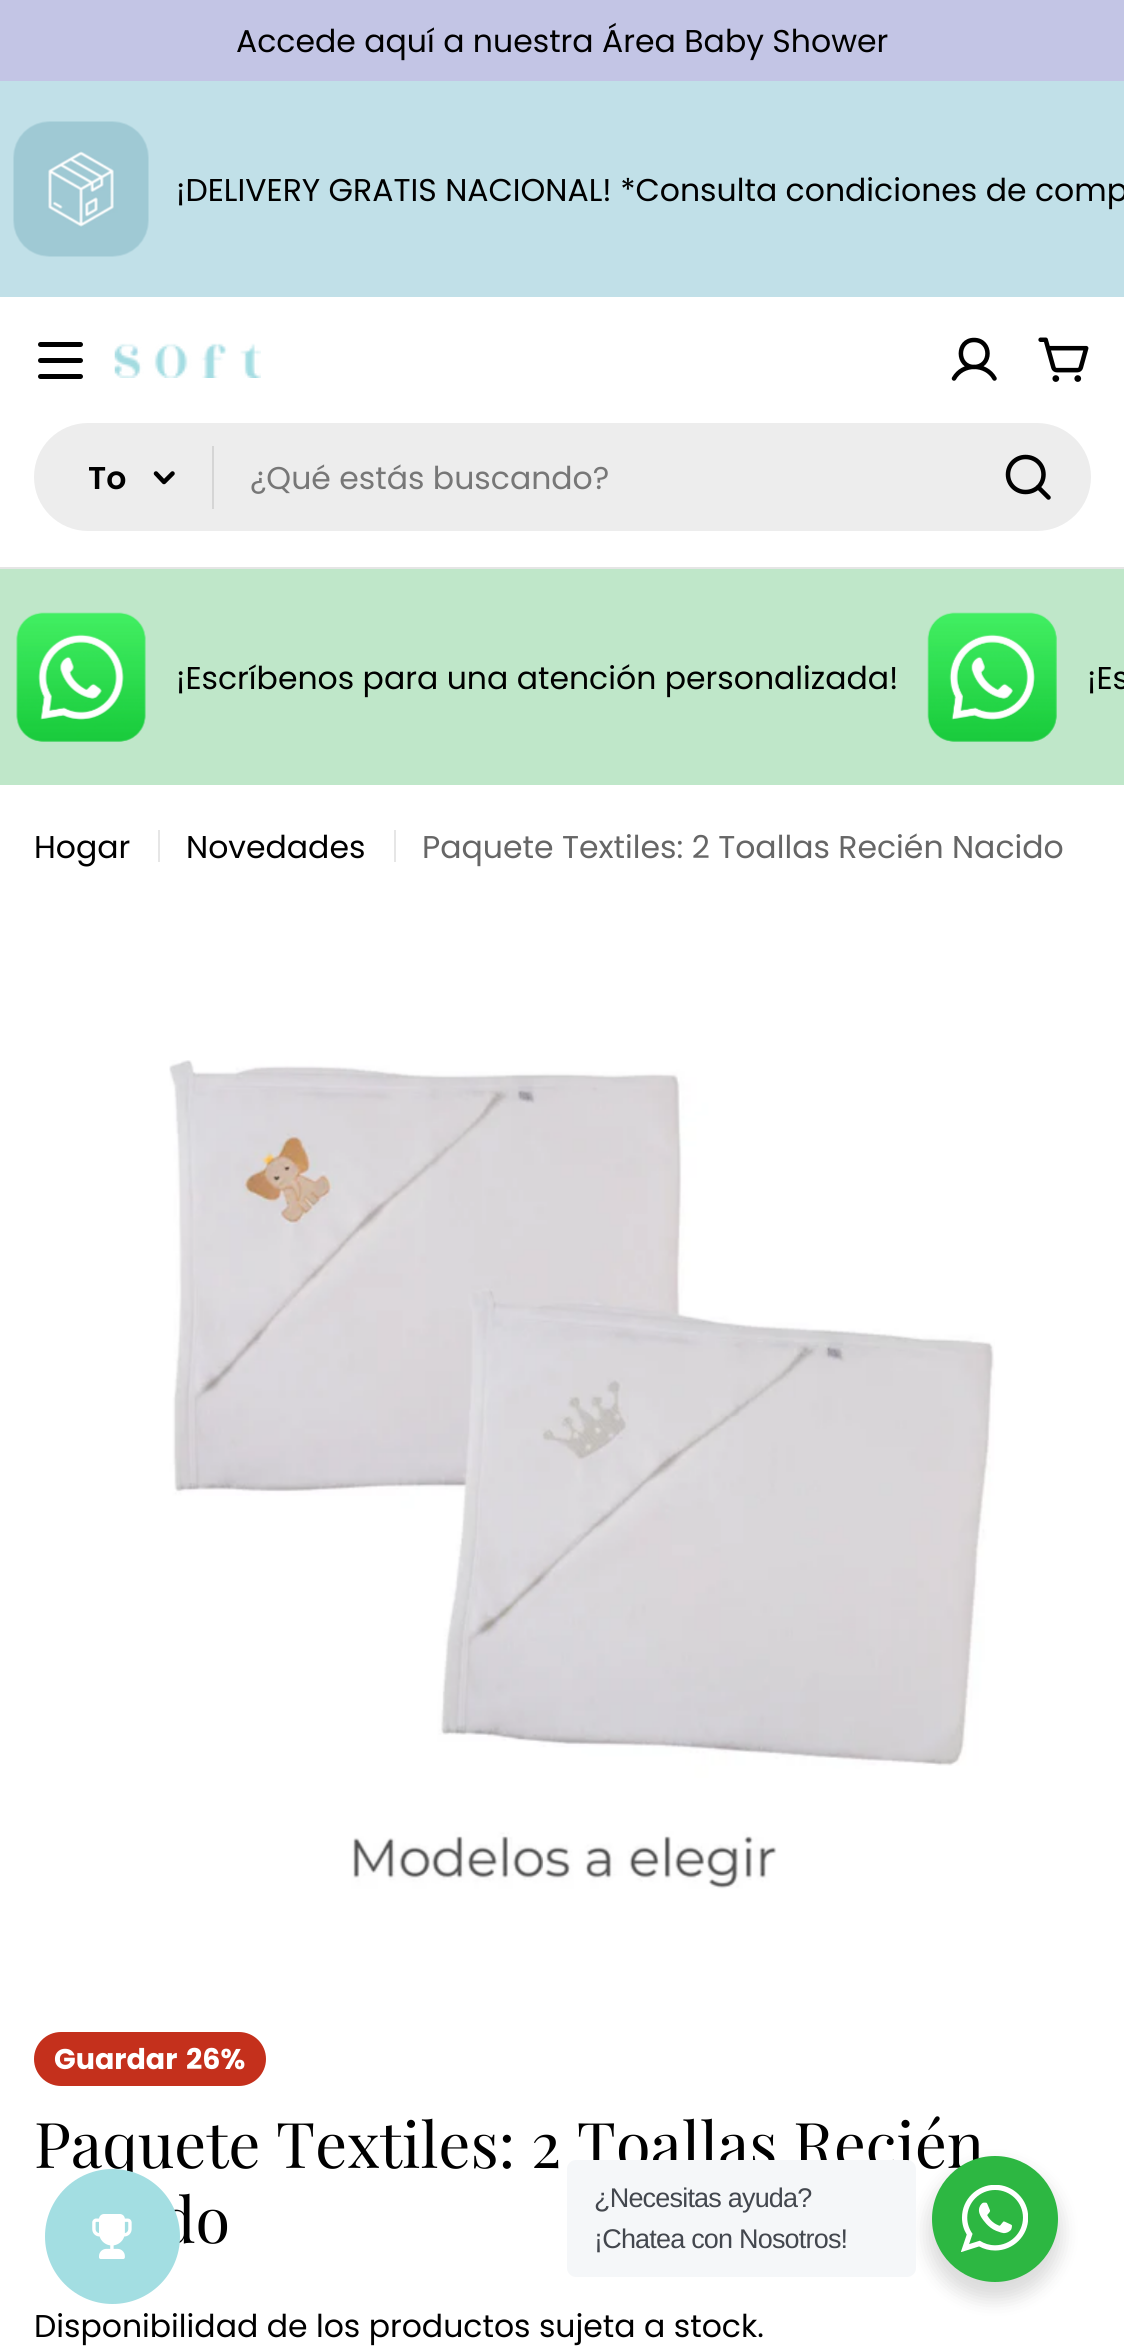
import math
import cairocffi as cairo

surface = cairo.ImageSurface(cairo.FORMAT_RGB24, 1124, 2347)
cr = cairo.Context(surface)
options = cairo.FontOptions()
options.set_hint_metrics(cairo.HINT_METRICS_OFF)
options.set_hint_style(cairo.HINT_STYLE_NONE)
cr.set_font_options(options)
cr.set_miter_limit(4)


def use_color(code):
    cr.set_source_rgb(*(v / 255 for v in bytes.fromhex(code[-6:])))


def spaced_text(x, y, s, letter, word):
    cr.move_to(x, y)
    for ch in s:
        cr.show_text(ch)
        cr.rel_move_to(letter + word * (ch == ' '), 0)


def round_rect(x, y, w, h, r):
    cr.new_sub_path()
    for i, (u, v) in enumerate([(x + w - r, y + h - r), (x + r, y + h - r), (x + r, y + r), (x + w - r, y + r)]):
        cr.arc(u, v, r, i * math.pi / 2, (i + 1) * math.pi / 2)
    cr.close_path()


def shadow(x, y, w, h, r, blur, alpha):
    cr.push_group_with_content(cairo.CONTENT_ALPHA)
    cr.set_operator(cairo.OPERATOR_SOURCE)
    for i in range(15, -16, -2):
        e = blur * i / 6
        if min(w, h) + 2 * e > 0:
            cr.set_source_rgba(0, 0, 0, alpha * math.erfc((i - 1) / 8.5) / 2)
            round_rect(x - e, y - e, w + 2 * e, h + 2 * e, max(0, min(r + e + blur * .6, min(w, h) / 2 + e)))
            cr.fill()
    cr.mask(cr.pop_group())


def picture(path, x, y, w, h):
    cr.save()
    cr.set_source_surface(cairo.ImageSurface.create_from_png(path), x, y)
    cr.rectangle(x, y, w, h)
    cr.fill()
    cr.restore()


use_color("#ffffff")
cr.paint()
use_color("#c3c5e5")
cr.rectangle(0, 0, 1124, 81)
cr.fill()
cr.select_font_face("Poppins")
cr.set_font_size(31.5)
use_color("#000000")
cr.move_to(236, 52)
cr.show_text("Accede aquí a nuestra Área Baby Shower")
use_color("#c1e0e8")
cr.rectangle(0, 81, 1124, 216)
cr.fill()
picture("img1.png", 13, 121, 136, 136)
use_color("#000000")
cr.move_to(176, 201)
cr.show_text("¡DELIVERY GRATIS NACIONAL! *Consulta condiciones de comp")
use_color("#e5e5e5")
cr.rectangle(0, 567, 1124, 2)
cr.fill()
use_color("#000000")
round_rect(38, 358, 45, 5, 2.5)
cr.fill()
round_rect(38, 342, 45, 5, 2.5)
cr.fill()
round_rect(38, 374, 45, 5, 2.5)
cr.fill()
picture("img2.png", 114, 343, 147, 35)
cr.new_path()
cr.move_to(974, 367)
cr.curve_to(992, 367, 992, 340, 974, 340)
cr.curve_to(956.5, 340, 956.5, 367, 974, 367)
cr.close_path()
cr.move_to(954, 378.5)
cr.curve_to(962.5, 363, 986, 363, 994.5, 378.5)
cr.set_line_width(4.5)
cr.set_line_cap(cairo.LINE_CAP_ROUND)
cr.set_line_join(cairo.LINE_JOIN_ROUND)
cr.stroke()
picture("img3.png", 1038, 337, 51, 45)
use_color("#ededed")
round_rect(34, 423, 1057, 108, 54)
cr.fill()
cr.select_font_face("Poppins SemiBold")
use_color("#000000")
cr.move_to(88, 489)
cr.show_text("To")
cr.new_path()
cr.move_to(172.5, 473.5)
cr.line_to(164, 482)
cr.line_to(156, 473.5)
cr.stroke()
use_color("#d5d5d5")
cr.rectangle(212, 446, 2, 63)
cr.fill()
cr.select_font_face("Poppins")
use_color("#777777")
cr.move_to(250, 489)
cr.show_text("¿Qué estás buscando?")
cr.new_path()
cr.move_to(1025.5, 492)
cr.curve_to(1035.5, 492, 1043.5, 484.5, 1043.5, 474.5)
cr.curve_to(1043.5, 464.5, 1035.5, 457, 1025.5, 457)
cr.curve_to(1016, 457, 1008, 464.5, 1008, 474.5)
cr.curve_to(1008, 484.5, 1016, 492, 1025.5, 492)
cr.close_path()
cr.move_to(1038, 487)
cr.line_to(1048.5, 497.5)
use_color("#000000")
cr.stroke()
use_color("#bfe7c9")
cr.rectangle(0, 569, 1124, 216)
cr.fill()
picture("img4.png", 16, 612, 130, 130)
use_color("#000000")
cr.move_to(176, 689)
cr.show_text("¡Escríbenos para una atención personalizada!")
picture("img5.png", 927, 612, 130, 130)
cr.move_to(1087, 689)
cr.show_text("¡Es")
cr.move_to(34, 858)
cr.show_text("Hogar")
use_color("#e6e6e6")
cr.rectangle(158, 830, 2, 32)
cr.fill()
use_color("#000000")
cr.move_to(186, 858)
cr.show_text("Novedades")
use_color("#e6e6e6")
cr.rectangle(394, 830, 2, 32)
cr.fill()
use_color("#666666")
cr.move_to(422, 858)
cr.show_text("Paquete Textiles: 2 Toallas Recién Nacido")
picture("img6.png", 169, 1060, 826, 829)
use_color("#c4301c")
round_rect(34, 2032, 232, 54, 27)
cr.fill()
cr.select_font_face("Poppins", cairo.FONT_SLANT_NORMAL, cairo.FONT_WEIGHT_BOLD)
cr.set_font_size(28.5)
use_color("#ffffff")
cr.move_to(54, 2069)
cr.show_text("Guardar")
cr.move_to(186, 2069)
cr.show_text("26%")
cr.select_font_face("Playfair Display")
cr.set_font_size(63)
use_color("#000000")
cr.move_to(34, 2168)
cr.show_text("Paquete Textiles: 2 Toallas Recién")
cr.move_to(159, 2243)
cr.show_text("do")
cr.select_font_face("Poppins")
cr.set_font_size(31.5)
cr.move_to(34, 2337)
cr.show_text("Disponibilidad de los productos sujeta a stock.")
use_color("#a3dee2")
cr.new_path()
cr.arc(112.5, 2236.5, 67.5, 0, 2 * math.pi)
cr.fill()
picture("img7.png", 92, 2214, 40, 45)
use_color("#000000")
shadow(927, 2165, 135, 135, 67.5, 9, 0.14)
use_color("#f5f7f9")
round_rect(567, 2160, 349, 117, 9)
cr.fill()
cr.select_font_face("Liberation Sans")
cr.set_font_size(27)
use_color("#43474e")
spaced_text(594, 2207, "¿Necesitas ayuda?", -0.8, 0)
spaced_text(594, 2248, "¡Chatea con Nosotros!", -0.8, 0)
use_color("#2db742")
cr.new_path()
cr.arc(995, 2219, 63, 0, 2 * math.pi)
cr.fill()
picture("img8.png", 961, 2185, 67, 67)
surface.write_to_png("result.png")
